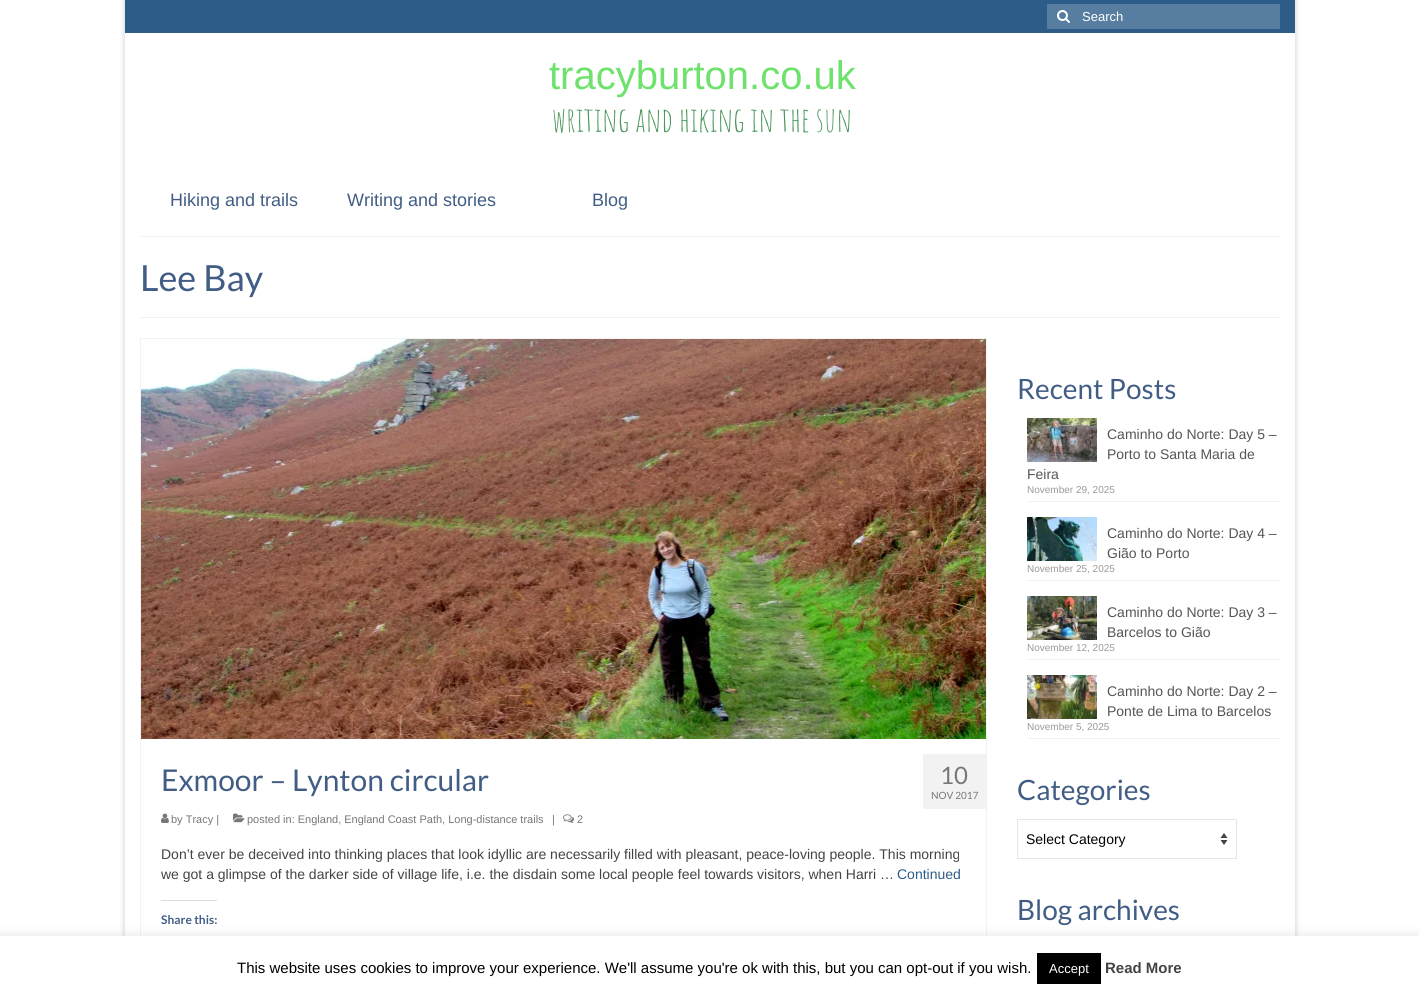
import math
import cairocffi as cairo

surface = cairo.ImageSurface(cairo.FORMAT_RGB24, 1419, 996)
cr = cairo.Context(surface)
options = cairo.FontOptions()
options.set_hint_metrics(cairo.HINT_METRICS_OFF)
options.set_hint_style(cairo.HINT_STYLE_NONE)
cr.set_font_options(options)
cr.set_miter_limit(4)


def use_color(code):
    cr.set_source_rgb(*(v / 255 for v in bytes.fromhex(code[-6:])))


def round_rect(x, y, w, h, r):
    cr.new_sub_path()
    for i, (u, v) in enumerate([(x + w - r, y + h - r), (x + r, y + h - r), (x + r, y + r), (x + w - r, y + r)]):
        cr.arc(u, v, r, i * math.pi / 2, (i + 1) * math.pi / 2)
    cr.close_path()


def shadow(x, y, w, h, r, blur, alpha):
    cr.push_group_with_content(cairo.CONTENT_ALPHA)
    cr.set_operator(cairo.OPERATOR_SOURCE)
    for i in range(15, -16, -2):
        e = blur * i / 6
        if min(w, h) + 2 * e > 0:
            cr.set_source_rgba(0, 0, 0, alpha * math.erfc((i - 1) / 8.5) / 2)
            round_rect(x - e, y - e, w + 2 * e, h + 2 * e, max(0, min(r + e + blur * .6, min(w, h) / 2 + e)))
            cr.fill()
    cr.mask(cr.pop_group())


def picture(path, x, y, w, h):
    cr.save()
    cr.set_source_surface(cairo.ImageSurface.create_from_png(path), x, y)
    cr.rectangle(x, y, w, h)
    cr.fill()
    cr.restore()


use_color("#ffffff")
cr.paint()
cr.save()
cr.set_fill_rule(cairo.FILL_RULE_EVEN_ODD)
cr.new_path()
cr.move_to(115, 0)
cr.line_to(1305, 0)
cr.line_to(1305, 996)
cr.line_to(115, 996)
cr.close_path()
cr.move_to(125, 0)
cr.line_to(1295, 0)
cr.line_to(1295, 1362)
cr.line_to(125, 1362)
cr.close_path()
cr.clip()
use_color("#000000")
shadow(124, -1, 1172, 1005, 0, 2.5, 0.16)
cr.restore()
use_color("#2d5c88")
cr.rectangle(125, 0, 1170, 33)
cr.fill()
use_color("#577da0")
cr.rectangle(1047, 4, 233, 25)
cr.fill()
picture("img1.png", 1057, 10, 13, 13)
cr.select_font_face("Liberation Sans")
cr.set_font_size(13)
use_color("#ffffff")
cr.move_to(1082, 21)
cr.show_text("Search")
cr.set_font_size(40)
use_color("#6ee26c")
cr.move_to(549, 89)
cr.show_text("tracyburton.co.uk")
cr.select_font_face("Amatic SC")
cr.set_font_size(34)
use_color("#489659")
cr.move_to(552, 132)
cr.show_text("writing and hiking in the sun")
cr.select_font_face("Liberation Sans")
cr.set_font_size(18)
use_color("#415d85")
cr.move_to(170, 206)
cr.show_text("Hiking and trails")
cr.move_to(347, 206)
cr.show_text("Writing and stories")
cr.move_to(592, 206)
cr.show_text("Blog")
use_color("#f2f2f2")
cr.rectangle(140, 236, 1140, 1)
cr.fill()
cr.rectangle(140, 317, 1140, 1)
cr.fill()
cr.select_font_face("Lato")
cr.set_font_size(36)
use_color("#415d85")
cr.move_to(140, 291)
cr.show_text("Lee Bay")
cr.rectangle(140.5, 338.5, 846, 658)
use_color("#f2f2f2")
cr.set_line_width(1)
cr.stroke()
picture("img2.png", 141, 339, 845, 400)
cr.set_font_size(30)
use_color("#415d85")
cr.move_to(161, 791)
cr.show_text("Exmoor – Lynton circular")
picture("img3.png", 161, 813, 8, 10)
cr.select_font_face("Liberation Sans")
cr.set_font_size(11)
use_color("#777777")
cr.move_to(171, 823)
cr.show_text("by Tracy |")
picture("img4.png", 233, 813, 12, 10)
cr.move_to(247, 823)
cr.show_text("posted in: England, England Coast Path, Long-distance trails")
cr.move_to(552, 823)
cr.show_text("|")
picture("img5.png", 563, 814, 11, 9)
cr.move_to(577, 823)
cr.show_text("2")
use_color("#f2f2f2")
cr.rectangle(923, 754, 63, 55)
cr.fill()
cr.select_font_face("Lato")
cr.set_font_size(24)
use_color("#777777")
cr.move_to(940, 784)
cr.show_text("10")
cr.set_font_size(10)
cr.move_to(931, 799)
cr.show_text("NOV 2017")
cr.select_font_face("Liberation Sans")
cr.set_font_size(14)
use_color("#444444")
cr.move_to(161, 859)
cr.show_text("Don’t ever be deceived into thinking places that look idyllic are necessarily filled with pleasant, peace-loving people. This morning")
cr.move_to(161, 879)
cr.show_text("we got a glimpse of the darker side of village life, i.e. the disdain some local people feel towards visitors, when Harri …")
use_color("#2d5c88")
cr.move_to(897, 879)
cr.show_text("Continued")
use_color("#dcdcde")
cr.rectangle(161, 900, 56, 1)
cr.fill()
cr.select_font_face("Lato", cairo.FONT_SLANT_NORMAL, cairo.FONT_WEIGHT_BOLD)
cr.set_font_size(12)
use_color("#415d85")
cr.move_to(161, 924)
cr.show_text("Share this:")
cr.select_font_face("Lato")
cr.set_font_size(28)
cr.move_to(1017, 399)
cr.show_text("Recent Posts")
use_color("#f2f2f2")
cr.rectangle(1027, 501, 253, 1)
cr.fill()
picture("img6.png", 1027, 418, 70, 44)
cr.select_font_face("Liberation Sans")
cr.set_font_size(14)
use_color("#555555")
cr.move_to(1107, 439)
cr.show_text("Caminho do Norte: Day 5 –")
cr.move_to(1107, 459)
cr.show_text("Porto to Santa Maria de")
cr.move_to(1027, 479)
cr.show_text("Feira")
cr.set_font_size(10)
use_color("#999999")
cr.move_to(1027, 493)
cr.show_text("November 29, 2025")
use_color("#f2f2f2")
cr.rectangle(1027, 580, 253, 1)
cr.fill()
picture("img7.png", 1027, 517, 70, 44)
cr.set_font_size(14)
use_color("#555555")
cr.move_to(1107, 538)
cr.show_text("Caminho do Norte: Day 4 –")
cr.move_to(1107, 558)
cr.show_text("Gião to Porto")
cr.set_font_size(10)
use_color("#999999")
cr.move_to(1027, 572)
cr.show_text("November 25, 2025")
use_color("#f2f2f2")
cr.rectangle(1027, 659, 253, 1)
cr.fill()
picture("img8.png", 1027, 596, 70, 44)
cr.set_font_size(14)
use_color("#555555")
cr.move_to(1107, 617)
cr.show_text("Caminho do Norte: Day 3 –")
cr.move_to(1107, 637)
cr.show_text("Barcelos to Gião")
cr.set_font_size(10)
use_color("#999999")
cr.move_to(1027, 651)
cr.show_text("November 12, 2025")
use_color("#f2f2f2")
cr.rectangle(1027, 738, 253, 1)
cr.fill()
picture("img9.png", 1027, 675, 70, 44)
cr.set_font_size(14)
use_color("#555555")
cr.move_to(1107, 696)
cr.show_text("Caminho do Norte: Day 2 –")
cr.move_to(1107, 716)
cr.show_text("Ponte de Lima to Barcelos")
cr.set_font_size(10)
use_color("#999999")
cr.move_to(1027, 730)
cr.show_text("November 5, 2025")
cr.select_font_face("Lato")
cr.set_font_size(28)
use_color("#415d85")
cr.move_to(1017, 800)
cr.show_text("Categories")
use_color("#444444")
cr.new_path()
cr.move_to(1220.5, 838)
cr.line_to(1224, 833)
cr.line_to(1227.5, 838)
cr.close_path()
cr.move_to(1227.5, 840)
cr.line_to(1224, 845)
cr.line_to(1220.5, 840)
cr.close_path()
cr.fill()
cr.rectangle(1017.5, 819.5, 219, 39)
use_color("#e6e6e6")
cr.stroke()
cr.select_font_face("Liberation Sans")
cr.set_font_size(14)
use_color("#000000")
cr.move_to(1026, 844)
cr.show_text("Select Category")
cr.select_font_face("Lato")
cr.set_font_size(28)
use_color("#415d85")
cr.move_to(1017, 920)
cr.show_text("Blog archives")
use_color("#acabab")
shadow(0, 935, 1419, 60, 0, 5, 0.3)
use_color("#ffffff")
cr.rectangle(0, 936, 1419, 60)
cr.fill()
cr.select_font_face("Liberation Sans")
cr.set_font_size(15)
use_color("#000000")
cr.move_to(237, 973)
cr.show_text("This website uses cookies to improve your experience. We'll assume you're ok with this, but you can opt-out if you wish.")
cr.rectangle(1037, 953, 64, 31)
cr.fill()
cr.set_font_size(13)
use_color("#ffffff")
cr.move_to(1049, 973)
cr.show_text("Accept")
cr.select_font_face("Liberation Sans", cairo.FONT_SLANT_NORMAL, cairo.FONT_WEIGHT_BOLD)
cr.set_font_size(15)
use_color("#444444")
cr.move_to(1105, 973)
cr.show_text("Read More")
surface.write_to_png("result.png")
